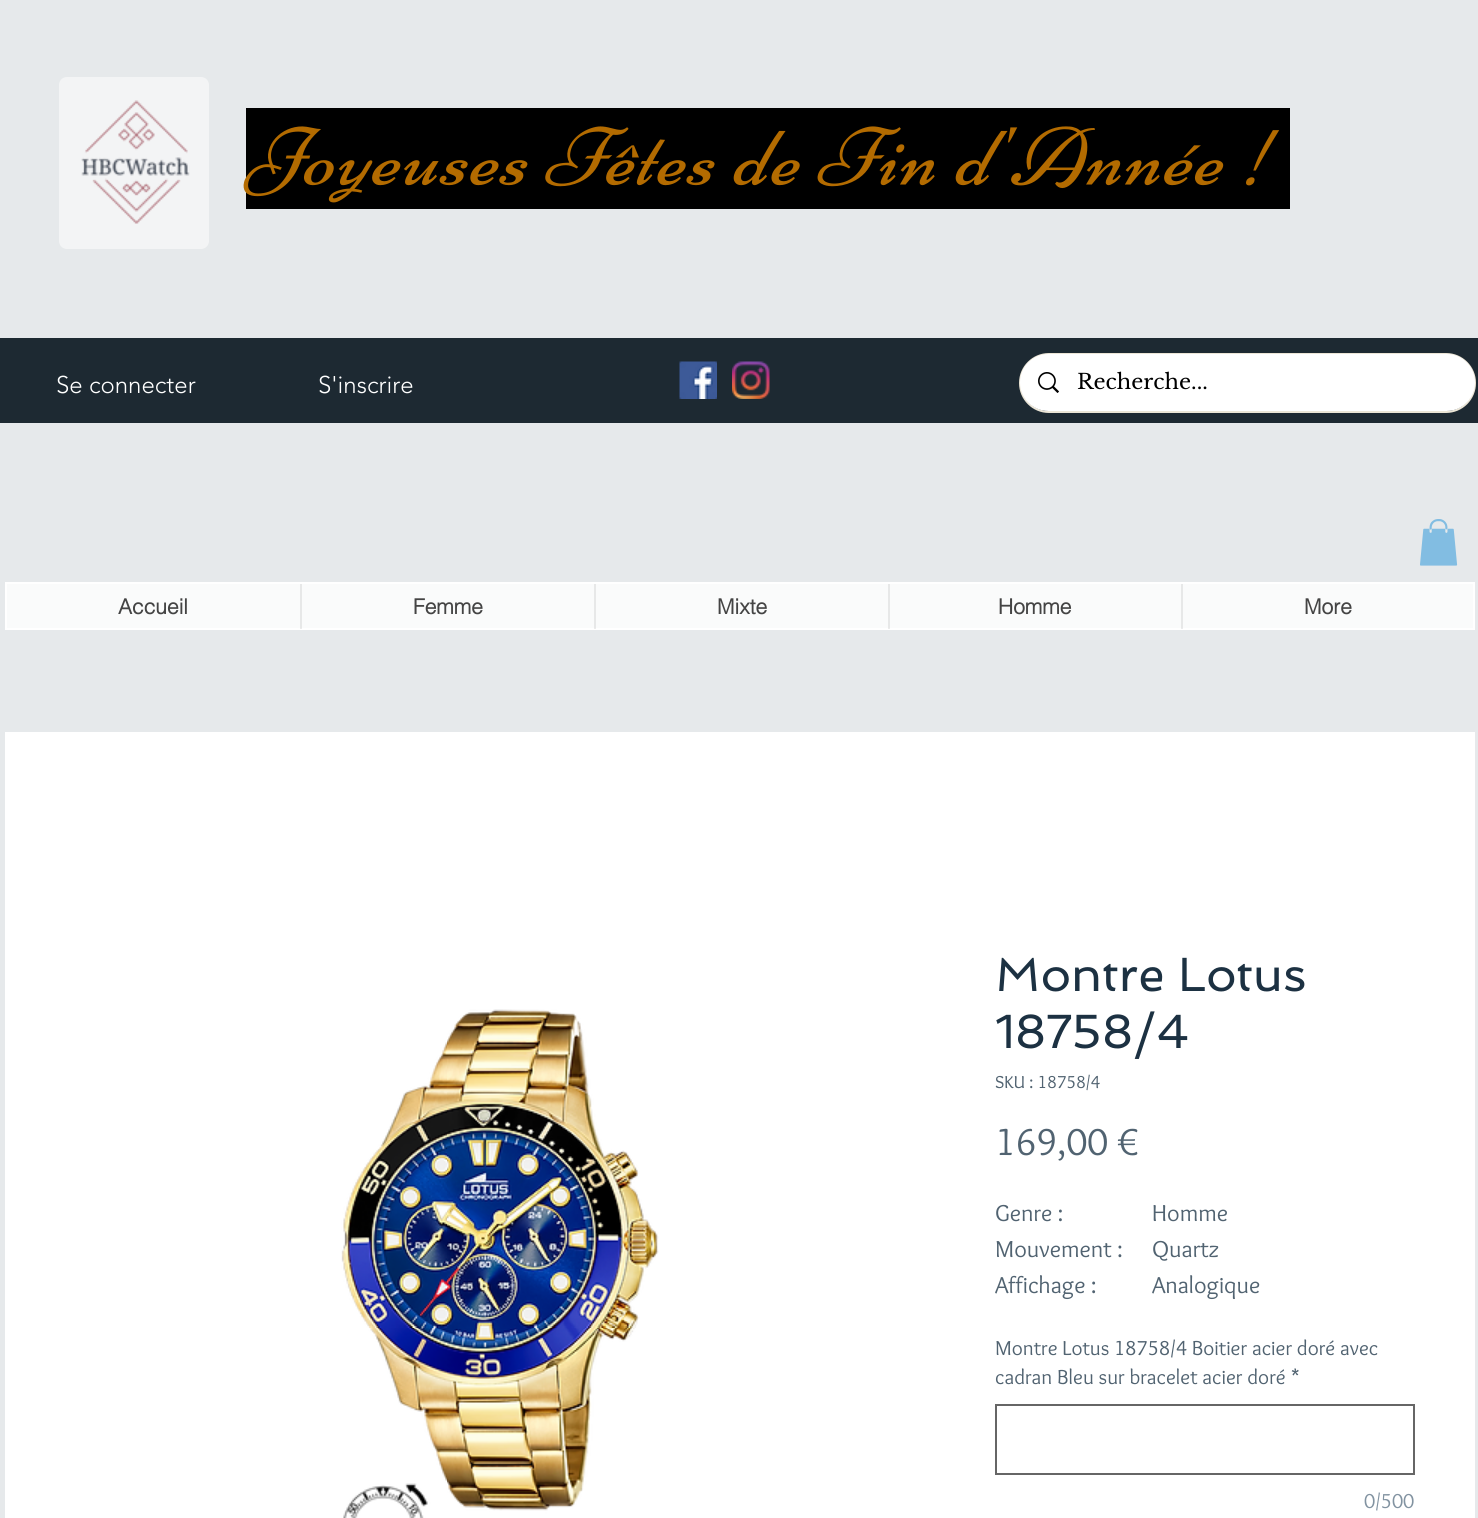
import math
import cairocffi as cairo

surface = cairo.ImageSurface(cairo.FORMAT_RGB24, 1478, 1518)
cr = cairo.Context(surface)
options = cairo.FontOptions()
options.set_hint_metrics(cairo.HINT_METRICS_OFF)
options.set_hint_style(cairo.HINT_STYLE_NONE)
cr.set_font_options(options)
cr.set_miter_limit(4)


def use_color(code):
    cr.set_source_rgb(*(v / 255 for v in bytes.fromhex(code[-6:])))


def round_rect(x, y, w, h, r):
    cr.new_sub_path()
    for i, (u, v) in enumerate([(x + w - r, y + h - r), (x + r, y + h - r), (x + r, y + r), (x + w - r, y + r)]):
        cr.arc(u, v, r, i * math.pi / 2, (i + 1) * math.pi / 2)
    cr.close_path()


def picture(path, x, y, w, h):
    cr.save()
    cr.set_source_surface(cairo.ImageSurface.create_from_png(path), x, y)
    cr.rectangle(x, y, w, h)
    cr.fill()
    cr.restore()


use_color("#e6e9eb")
cr.paint()
use_color("#1d2932")
cr.rectangle(0, 338, 1478, 85)
cr.fill()
cr.select_font_face("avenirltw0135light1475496 Light")
cr.set_font_size(24)
use_color("#ffffff")
cr.move_to(56, 393)
cr.show_text("Se connecter")
cr.move_to(318, 393)
cr.show_text("S'inscrire")
picture("img1.png", 679, 361, 38, 38)
picture("img2.png", 732, 361, 38, 38)
round_rect(1020, 354, 455, 58, 29)
use_color("#ebe5d6")
cr.stroke()
use_color("#ffffff")
round_rect(1020, 354, 455, 57, 28.5)
cr.fill()
picture("img3.png", 1038, 372, 21, 21)
cr.select_font_face("Libre Baskerville")
cr.set_font_size(21)
use_color("#000000")
cr.move_to(1077, 389)
cr.show_text("Recherche...")
use_color("#f3f4f5")
round_rect(59, 77, 150, 172, 8)
cr.fill()
picture("img4.png", 81, 100, 109, 124)
use_color("#000000")
cr.rectangle(246, 108, 1044, 101)
cr.fill()
picture("img5.png", 243, 126, 1037, 77)
picture("img6.png", 1420, 519, 38, 47)
use_color("#fafbfb")
cr.rectangle(6, 583, 1468, 46)
cr.fill_preserve()
use_color("#ffffff")
cr.stroke()
cr.select_font_face("helvetica", cairo.FONT_SLANT_NORMAL, cairo.FONT_WEIGHT_BOLD)
use_color("#444444")
cr.move_to(118, 614)
cr.show_text("Accueil")
cr.set_source_rgba(0.255, 0.255, 0.255, 0.1)
cr.rectangle(300, 584, 2, 45)
cr.fill()
use_color("#444444")
cr.move_to(413, 614)
cr.show_text("Femme")
cr.set_source_rgba(0.255, 0.255, 0.255, 0.1)
cr.rectangle(594, 584, 2, 45)
cr.fill()
use_color("#444444")
cr.move_to(717, 614)
cr.show_text("Mixte")
cr.set_source_rgba(0.255, 0.255, 0.255, 0.1)
cr.rectangle(888, 584, 2, 45)
cr.fill()
use_color("#444444")
cr.move_to(998, 614)
cr.show_text("Homme")
cr.set_source_rgba(0.255, 0.255, 0.255, 0.1)
cr.rectangle(1181, 584, 2, 45)
cr.fill()
use_color("#444444")
cr.move_to(1304, 614)
cr.show_text("More")
use_color("#ffffff")
cr.rectangle(5, 732, 1470, 786)
cr.fill()
picture("img7.png", 341, 1009, 318, 509)
cr.select_font_face("Spinnaker")
cr.set_font_size(48)
use_color("#1c3142")
cr.move_to(995, 991)
cr.show_text("Montre Lotus")
cr.move_to(995, 1048)
cr.show_text("18758/4")
cr.select_font_face("Overlock")
cr.set_font_size(18)
use_color("#516371")
cr.move_to(995, 1088)
cr.show_text("SKU : 18758/4")
cr.set_font_size(39)
cr.move_to(995, 1155)
cr.show_text("169,00 €")
cr.set_font_size(24)
cr.move_to(995, 1221)
cr.show_text("Genre :")
cr.move_to(1152, 1221)
cr.show_text("Homme")
cr.move_to(995, 1257)
cr.show_text("Mouvement :")
cr.move_to(1152, 1257)
cr.show_text("Quartz")
cr.move_to(995, 1293)
cr.show_text("Affichage :")
cr.move_to(1152, 1293)
cr.show_text("Analogique")
cr.set_font_size(21)
cr.move_to(995, 1355)
cr.show_text("Montre Lotus 18758/4 Boitier acier doré avec")
cr.move_to(995, 1384)
cr.show_text("cadran Bleu sur bracelet acier doré")
cr.move_to(1291, 1384)
cr.show_text("*")
cr.rectangle(996, 1405, 418, 69)
use_color("#666666")
cr.stroke()
use_color("#8293a1")
cr.move_to(1364, 1508)
cr.show_text("0/500")
surface.write_to_png("result.png")
